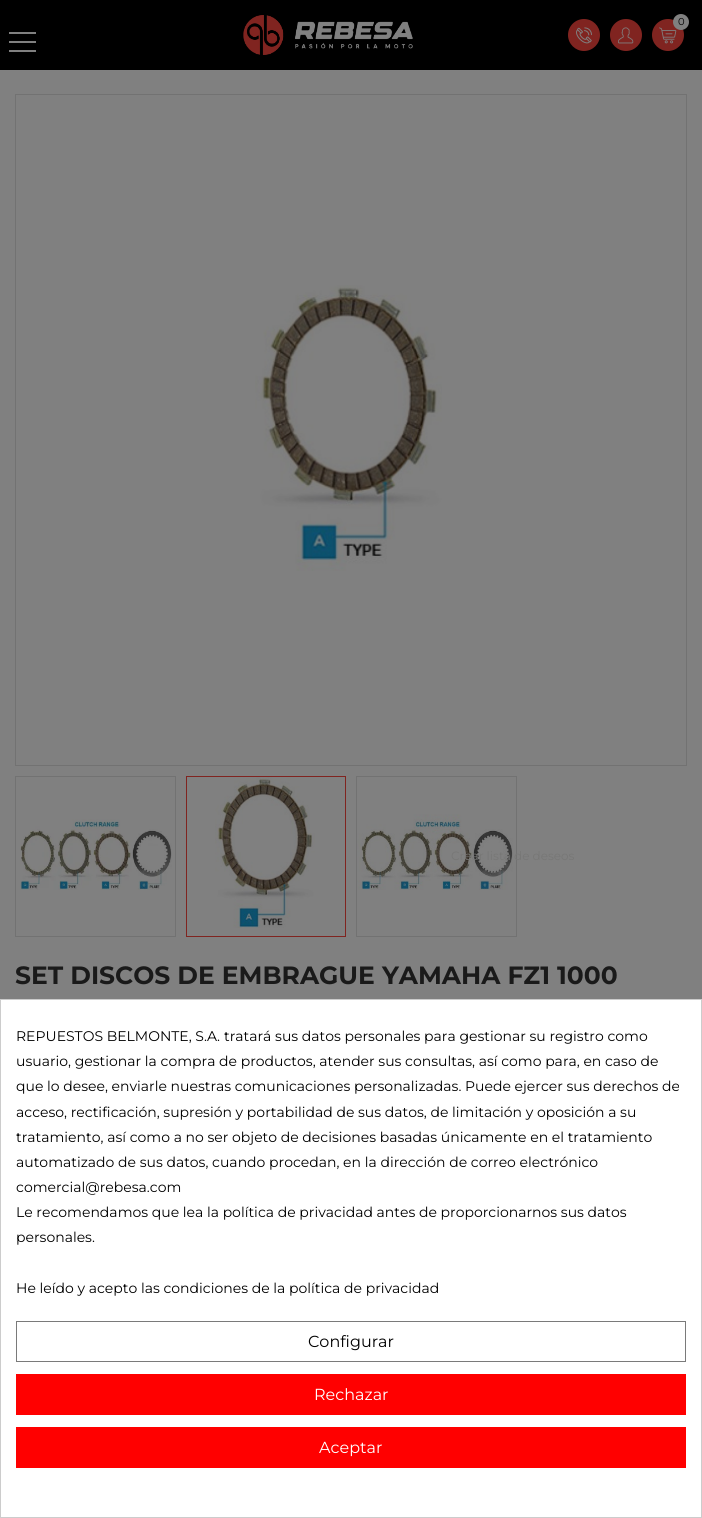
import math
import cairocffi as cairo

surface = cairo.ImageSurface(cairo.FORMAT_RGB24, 702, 1518)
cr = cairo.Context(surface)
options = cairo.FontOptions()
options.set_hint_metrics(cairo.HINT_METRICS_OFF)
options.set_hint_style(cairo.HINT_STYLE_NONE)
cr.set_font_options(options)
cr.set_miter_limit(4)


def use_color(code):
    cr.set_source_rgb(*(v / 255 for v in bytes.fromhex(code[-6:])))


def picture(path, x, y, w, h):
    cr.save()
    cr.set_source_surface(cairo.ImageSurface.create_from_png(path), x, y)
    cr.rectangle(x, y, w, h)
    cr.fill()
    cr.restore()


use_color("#808080")
cr.paint()
use_color("#000000")
cr.rectangle(0, 0, 702, 70)
cr.fill()
use_color("#808080")
cr.rectangle(9, 32, 27, 2)
cr.fill()
cr.rectangle(9, 41, 27, 2)
cr.fill()
cr.rectangle(9, 50, 27, 2)
cr.fill()
picture("img1.png", 243, 15, 170, 40)
use_color("#802420")
cr.arc(584, 35, 16, 0, 2 * math.pi)
cr.fill()
picture("img2.png", 576, 27, 16, 17)
cr.arc(626, 35, 16, 0, 2 * math.pi)
cr.fill()
picture("img3.png", 618, 27, 16, 17)
cr.arc(668, 35, 16, 0, 2 * math.pi)
cr.fill()
picture("img4.png", 659, 27, 18, 17)
use_color("#808080")
cr.arc(681, 22, 8, 0, 2 * math.pi)
cr.fill()
cr.select_font_face("Montserrat")
cr.set_font_size(10)
use_color("#000000")
cr.move_to(678, 25)
cr.show_text("0")
cr.rectangle(356.5, 776.5, 160, 160)
use_color("#727272")
cr.set_line_width(1)
cr.stroke()
picture("img8.png", 357, 814, 156, 76)
cr.set_font_size(12)
use_color("#777776")
cr.move_to(451, 860)
cr.show_text("Crear lista de deseos")
cr.rectangle(15.5, 94.5, 671, 671)
use_color("#727272")
cr.stroke()
picture("img5.png", 255, 285, 187, 286)
cr.rectangle(15.5, 776.5, 160, 160)
cr.stroke()
picture("img6.png", 20, 819, 152, 71)
cr.rectangle(186.5, 776.5, 159, 160)
use_color("#802420")
cr.stroke()
picture("img7.png", 215, 777, 100, 151)
cr.select_font_face("Montserrat", cairo.FONT_SLANT_NORMAL, cairo.FONT_WEIGHT_BOLD)
cr.set_font_size(25)
use_color("#1a1a1a")
cr.move_to(15, 984)
cr.show_text("SET DISCOS DE EMBRAGUE YAMAHA FZ1 1000")
use_color("#ffffff")
cr.rectangle(0.5, 999.5, 701, 518)
cr.fill_preserve()
use_color("#cccccc")
cr.stroke()
cr.select_font_face("Montserrat")
cr.set_font_size(14)
use_color("#000000")
cr.move_to(16, 1041)
cr.show_text("REPUESTOS BELMONTE, S.A.")
cr.move_to(224, 1041)
cr.show_text("tratará sus datos personales para gestionar su registro como")
cr.move_to(16, 1066)
cr.show_text("usuario, gestionar la compra de productos, atender sus consultas, así como para, en caso de")
cr.move_to(16, 1091)
cr.show_text("que lo desee, enviarle nuestras comunicaciones personalizadas. Puede ejercer sus derechos de")
cr.move_to(16, 1117)
cr.show_text("acceso, rectificación, supresión y portabilidad de sus datos, de limitación y oposición a su")
cr.move_to(16, 1142)
cr.show_text("tratamiento, así como a no ser objeto de decisiones basadas únicamente en el tratamiento")
cr.move_to(16, 1167)
cr.show_text("automatizado de sus datos, cuando procedan, en la dirección de correo electrónico")
cr.move_to(16, 1192)
cr.show_text("comercial@rebesa.com")
cr.move_to(16, 1217)
cr.show_text("Le recomendamos que lea la política de privacidad antes de proporcionarnos sus datos")
cr.move_to(16, 1242)
cr.show_text("personales.")
cr.move_to(16, 1293)
cr.show_text("He leído y acepto las condiciones de la política de privacidad")
cr.rectangle(16.5, 1321.5, 669, 40)
use_color("#7a7a7a")
cr.stroke()
cr.set_font_size(16)
use_color("#000000")
cr.move_to(308, 1347)
cr.show_text("Configurar")
use_color("#ff0000")
cr.rectangle(16, 1374, 670, 41)
cr.fill()
use_color("#ffffff")
cr.move_to(314, 1400)
cr.show_text("Rechazar")
use_color("#ff0000")
cr.rectangle(16, 1427, 670, 41)
cr.fill()
use_color("#ffffff")
cr.move_to(319, 1453)
cr.show_text("Aceptar")
surface.write_to_png("result.png")
